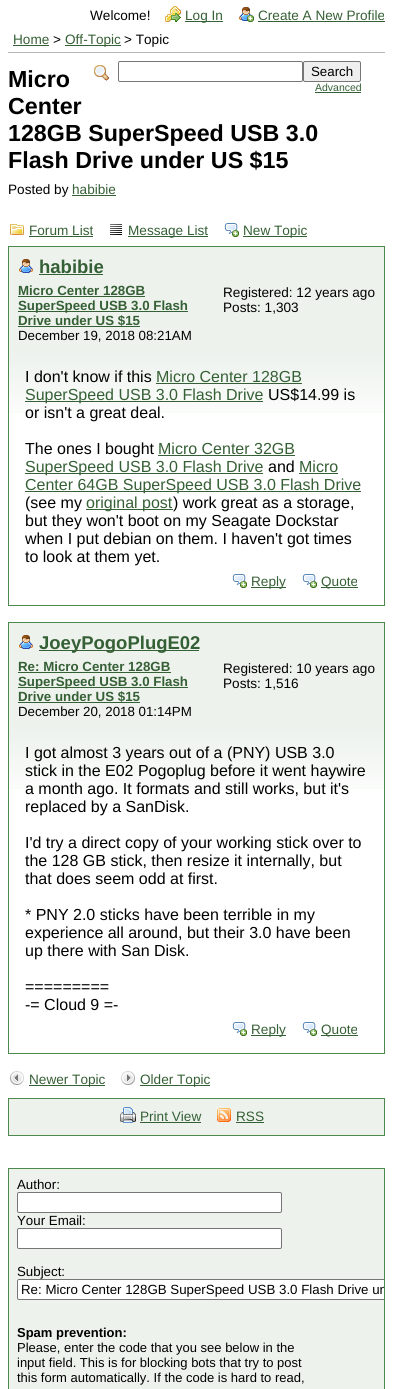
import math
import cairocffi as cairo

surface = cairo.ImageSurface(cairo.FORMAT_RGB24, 393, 1389)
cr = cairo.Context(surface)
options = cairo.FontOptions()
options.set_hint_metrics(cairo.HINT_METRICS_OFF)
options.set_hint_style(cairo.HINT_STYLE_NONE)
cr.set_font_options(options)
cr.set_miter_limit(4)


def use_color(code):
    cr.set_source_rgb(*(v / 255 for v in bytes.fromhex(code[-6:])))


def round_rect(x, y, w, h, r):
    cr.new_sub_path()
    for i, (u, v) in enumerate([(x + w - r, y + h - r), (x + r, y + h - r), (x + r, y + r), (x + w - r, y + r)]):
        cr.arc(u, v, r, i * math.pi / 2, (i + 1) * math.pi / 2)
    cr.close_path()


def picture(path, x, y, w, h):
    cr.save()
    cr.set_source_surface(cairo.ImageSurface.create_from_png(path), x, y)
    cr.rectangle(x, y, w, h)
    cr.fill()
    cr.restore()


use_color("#ffffff")
cr.paint()
cr.select_font_face("Liberation Sans")
cr.set_font_size(13.6)
use_color("#000000")
cr.move_to(90, 20)
cr.show_text("Welcome!")
picture("img1.png", 165, 6, 16, 16)
use_color("#355f35")
cr.rectangle(185, 21, 38, 1)
cr.fill()
cr.move_to(185, 20)
cr.show_text("Log In")
picture("img2.png", 239, 7, 15, 15)
cr.move_to(258, 20)
cr.show_text("Create A New Profile")
cr.rectangle(258, 21, 127, 1)
cr.fill()
use_color("#b6b6b6")
cr.rectangle(8, 52, 377, 1)
cr.fill()
use_color("#355f35")
cr.move_to(13, 44)
cr.show_text("Home")
cr.rectangle(13, 45, 36, 1)
cr.fill()
use_color("#000000")
cr.move_to(53, 44)
cr.show_text(">")
use_color("#355f35")
cr.rectangle(65, 45, 56, 1)
cr.fill()
cr.move_to(65, 44)
cr.show_text("Off-Topic")
use_color("#000000")
cr.move_to(124, 44)
cr.show_text("> Topic")
cr.select_font_face("Liberation Sans", cairo.FONT_SLANT_NORMAL, cairo.FONT_WEIGHT_BOLD)
cr.set_font_size(23.25)
cr.move_to(8, 87)
cr.show_text("Micro")
cr.move_to(8, 114)
cr.show_text("Center")
cr.move_to(8, 141)
cr.show_text("128GB SuperSpeed USB 3.0")
cr.move_to(8, 168)
cr.show_text("Flash Drive under US $15")
cr.select_font_face("Liberation Sans")
cr.set_font_size(13.6)
cr.move_to(8, 194)
cr.show_text("Posted by")
use_color("#355f35")
cr.move_to(72, 194)
cr.show_text("habibie")
cr.rectangle(72, 195, 44, 1)
cr.fill()
picture("img3.png", 94, 65, 16, 16)
round_rect(118.5, 61.5, 184, 20, 1.5)
use_color("#767676")
cr.set_line_width(1)
cr.stroke()
use_color("#efefef")
round_rect(303.5, 61.5, 57, 20, 1.5)
cr.fill_preserve()
use_color("#767676")
cr.stroke()
cr.set_font_size(13.3)
use_color("#000000")
cr.move_to(311, 76)
cr.show_text("Search")
cr.set_font_size(10.5)
use_color("#355f35")
cr.move_to(315, 91)
cr.show_text("Advanced")
cr.rectangle(315, 92, 46, 1)
cr.fill()
picture("img4.png", 10, 224, 14, 11)
cr.set_font_size(13.6)
cr.move_to(29, 235)
cr.show_text("Forum List")
cr.rectangle(29, 236, 64, 1)
cr.fill()
picture("img5.png", 110, 224, 12, 11)
cr.rectangle(128, 236, 80, 1)
cr.fill()
cr.move_to(128, 235)
cr.show_text("Message List")
picture("img6.png", 224, 223, 15, 14)
cr.rectangle(243, 236, 64, 1)
cr.fill()
cr.move_to(243, 235)
cr.show_text("New Topic")
use_color("#edf2ed")
cr.rectangle(9, 247, 375, 105)
cr.fill()
use_color("#4d894d")
cr.rectangle(8, 246, 377, 1)
cr.fill()
cr.rectangle(384, 246, 1, 360)
cr.fill()
cr.rectangle(8, 246, 1, 106)
cr.fill()
picture("img7.png", 19, 259, 14, 14)
cr.select_font_face("Liberation Sans", cairo.FONT_SLANT_NORMAL, cairo.FONT_WEIGHT_BOLD)
cr.set_font_size(18.5)
use_color("#355f35")
cr.move_to(39, 273)
cr.show_text("habibie")
cr.rectangle(39, 274, 64, 1)
cr.fill()
cr.set_font_size(13.3)
cr.move_to(18, 295)
cr.show_text("Micro Center 128GB")
cr.rectangle(18, 296, 127, 1)
cr.fill()
cr.rectangle(18, 311, 170, 1)
cr.fill()
cr.move_to(18, 310)
cr.show_text("SuperSpeed USB 3.0 Flash")
cr.move_to(18, 325)
cr.show_text("Drive under US $15")
cr.rectangle(18, 326, 122, 1)
cr.fill()
cr.select_font_face("Liberation Sans")
use_color("#000000")
cr.move_to(18, 340)
cr.show_text("December 19, 2018 08:21AM")
cr.set_font_size(13.6)
cr.move_to(223, 297)
cr.show_text("Registered: 12 years ago")
cr.move_to(223, 312)
cr.show_text("Posts: 1,303")
picture("img8.png", 9, 352, 375, 61)
use_color("#4d894d")
cr.rectangle(8, 605, 377, 1)
cr.fill()
cr.rectangle(8, 352, 1, 254)
cr.fill()
cr.set_font_size(16)
use_color("#000000")
cr.move_to(25, 382)
cr.show_text("I don't know if this")
use_color("#355f35")
cr.move_to(156, 382)
cr.show_text("Micro Center 128GB")
cr.rectangle(156, 383, 146, 1)
cr.fill()
cr.rectangle(25, 401, 238, 1)
cr.fill()
cr.move_to(25, 400)
cr.show_text("SuperSpeed USB 3.0 Flash Drive")
use_color("#000000")
cr.move_to(268, 400)
cr.show_text("US$14.99 is")
cr.move_to(25, 418)
cr.show_text("or isn't a great deal.")
cr.move_to(25, 454)
cr.show_text("The ones I bought")
use_color("#355f35")
cr.move_to(158, 454)
cr.show_text("Micro Center 32GB")
cr.rectangle(158, 455, 137, 1)
cr.fill()
cr.rectangle(25, 473, 238, 1)
cr.fill()
cr.move_to(25, 472)
cr.show_text("SuperSpeed USB 3.0 Flash Drive")
use_color("#000000")
cr.move_to(268, 472)
cr.show_text("and")
use_color("#355f35")
cr.move_to(299, 472)
cr.show_text("Micro")
cr.rectangle(299, 473, 39, 1)
cr.fill()
cr.rectangle(25, 491, 336, 1)
cr.fill()
cr.move_to(25, 490)
cr.show_text("Center 64GB SuperSpeed USB 3.0 Flash Drive")
use_color("#000000")
cr.move_to(25, 508)
cr.show_text("(see my")
use_color("#355f35")
cr.rectangle(86, 509, 87, 1)
cr.fill()
cr.move_to(86, 508)
cr.show_text("original post")
use_color("#000000")
cr.move_to(173, 508)
cr.show_text(") work great as a storage,")
cr.move_to(25, 526)
cr.show_text("but they won't boot on my Seagate Dockstar")
cr.move_to(25, 544)
cr.show_text("when I put debian on them. I haven't got times")
cr.move_to(25, 562)
cr.show_text("to look at them yet.")
picture("img6.png", 232, 574, 15, 14)
use_color("#355f35")
cr.rectangle(251, 587, 35, 1)
cr.fill()
cr.set_font_size(13.6)
cr.move_to(251, 586)
cr.show_text("Reply")
picture("img6.png", 302, 574, 15, 14)
cr.rectangle(321, 587, 37, 1)
cr.fill()
cr.move_to(321, 586)
cr.show_text("Quote")
use_color("#edf2ed")
cr.rectangle(9, 623, 375, 105)
cr.fill()
use_color("#4d894d")
cr.rectangle(8, 622, 377, 1)
cr.fill()
cr.rectangle(384, 622, 1, 432)
cr.fill()
cr.rectangle(8, 622, 1, 106)
cr.fill()
picture("img7.png", 19, 635, 14, 14)
use_color("#355f35")
cr.rectangle(39, 650, 160, 1)
cr.fill()
cr.select_font_face("Liberation Sans", cairo.FONT_SLANT_NORMAL, cairo.FONT_WEIGHT_BOLD)
cr.set_font_size(18.5)
cr.move_to(39, 649)
cr.show_text("JoeyPogoPlugE02")
cr.set_font_size(13.3)
cr.move_to(18, 671)
cr.show_text("Re: Micro Center 128GB")
cr.rectangle(18, 672, 153, 1)
cr.fill()
cr.rectangle(18, 687, 170, 1)
cr.fill()
cr.move_to(18, 686)
cr.show_text("SuperSpeed USB 3.0 Flash")
cr.move_to(18, 701)
cr.show_text("Drive under US $15")
cr.rectangle(18, 702, 122, 1)
cr.fill()
cr.select_font_face("Liberation Sans")
use_color("#000000")
cr.move_to(18, 716)
cr.show_text("December 20, 2018 01:14PM")
cr.set_font_size(13.6)
cr.move_to(223, 673)
cr.show_text("Registered: 10 years ago")
cr.move_to(223, 688)
cr.show_text("Posts: 1,516")
picture("img8.png", 9, 728, 375, 61)
use_color("#4d894d")
cr.rectangle(8, 1053, 377, 1)
cr.fill()
cr.rectangle(8, 728, 1, 326)
cr.fill()
cr.set_font_size(16)
use_color("#000000")
cr.move_to(25, 758)
cr.show_text("I got almost 3 years out of a (PNY) USB 3.0")
cr.move_to(25, 776)
cr.show_text("stick in the E02 Pogoplug before it went haywire")
cr.move_to(25, 794)
cr.show_text("a month ago. It formats and still works, but it's")
cr.move_to(25, 812)
cr.show_text("replaced by a SanDisk.")
cr.move_to(25, 848)
cr.show_text("I'd try a direct copy of your working stick over to")
cr.move_to(25, 866)
cr.show_text("the 128 GB stick, then resize it internally, but")
cr.move_to(25, 884)
cr.show_text("that does seem odd at first.")
cr.move_to(25, 920)
cr.show_text("* PNY 2.0 sticks have been terrible in my")
cr.move_to(25, 938)
cr.show_text("experience all around, but their 3.0 have been")
cr.move_to(25, 956)
cr.show_text("up there with San Disk.")
cr.move_to(25, 992)
cr.show_text("=========")
cr.move_to(25, 1010)
cr.show_text("-= Cloud 9 =-")
picture("img6.png", 232, 1022, 15, 14)
use_color("#355f35")
cr.rectangle(251, 1035, 35, 1)
cr.fill()
cr.set_font_size(13.6)
cr.move_to(251, 1034)
cr.show_text("Reply")
picture("img6.png", 302, 1022, 15, 14)
cr.rectangle(321, 1035, 37, 1)
cr.fill()
cr.move_to(321, 1034)
cr.show_text("Quote")
picture("img9.png", 10, 1071, 14, 14)
cr.rectangle(29, 1085, 76, 1)
cr.fill()
cr.move_to(29, 1084)
cr.show_text("Newer Topic")
picture("img10.png", 121, 1071, 14, 14)
cr.rectangle(140, 1085, 70, 1)
cr.fill()
cr.move_to(140, 1084)
cr.show_text("Older Topic")
use_color("#edf2ed")
cr.rectangle(8.5, 1098.5, 376, 37)
cr.fill_preserve()
use_color("#4d894d")
cr.stroke()
picture("img11.png", 120, 1107, 16, 16)
use_color("#355f35")
cr.move_to(140, 1121)
cr.show_text("Print View")
cr.rectangle(140, 1122, 61, 1)
cr.fill()
picture("img12.png", 217, 1108, 14, 14)
cr.move_to(236, 1121)
cr.show_text("RSS")
cr.rectangle(236, 1122, 28, 1)
cr.fill()
use_color("#edf2ed")
cr.rectangle(8.5, 1168.5, 376, 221)
cr.fill_preserve()
use_color("#4d894d")
cr.stroke()
cr.set_font_size(13.3)
use_color("#000000")
cr.move_to(17, 1189)
cr.show_text("Author:")
use_color("#ffffff")
round_rect(17.5, 1192.5, 264, 20, 1.5)
cr.fill_preserve()
use_color("#767676")
cr.stroke()
use_color("#000000")
cr.move_to(17, 1225)
cr.show_text("Your Email:")
use_color("#ffffff")
round_rect(17.5, 1228.5, 264, 20, 1.5)
cr.fill_preserve()
use_color("#767676")
cr.stroke()
use_color("#000000")
cr.move_to(17, 1276)
cr.show_text("Subject:")
use_color("#ffffff")
cr.new_path()
cr.move_to(19, 1279)
cr.line_to(384, 1279)
cr.line_to(384, 1300)
cr.line_to(19, 1300)
cr.curve_to(18, 1300, 17, 1299, 17, 1298)
cr.line_to(17, 1281)
cr.curve_to(17, 1280, 18, 1279, 19, 1279)
cr.close_path()
cr.fill()
cr.save()
cr.rectangle(9, 1169, 375, 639)
cr.clip()
round_rect(17.5, 1279.5, 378, 20, 1.5)
use_color("#767676")
cr.stroke()
cr.restore()
cr.save()
cr.rectangle(21, 1282, 363, 15)
cr.clip()
use_color("#000000")
cr.move_to(21, 1294)
cr.show_text("Re: Micro Center 128GB SuperSpeed USB 3.0 Flash Drive un")
cr.restore()
cr.select_font_face("Liberation Sans", cairo.FONT_SLANT_NORMAL, cairo.FONT_WEIGHT_BOLD)
cr.set_font_size(13)
use_color("#000000")
cr.move_to(17, 1337)
cr.show_text("Spam prevention:")
cr.select_font_face("Liberation Sans")
cr.move_to(17, 1352)
cr.show_text("Please, enter the code that you see below in the")
cr.move_to(17, 1367)
cr.show_text("input field. This is for blocking bots that try to post")
cr.move_to(17, 1382)
cr.show_text("this form automatically. If the code is hard to read,")
surface.write_to_png("result.png")
